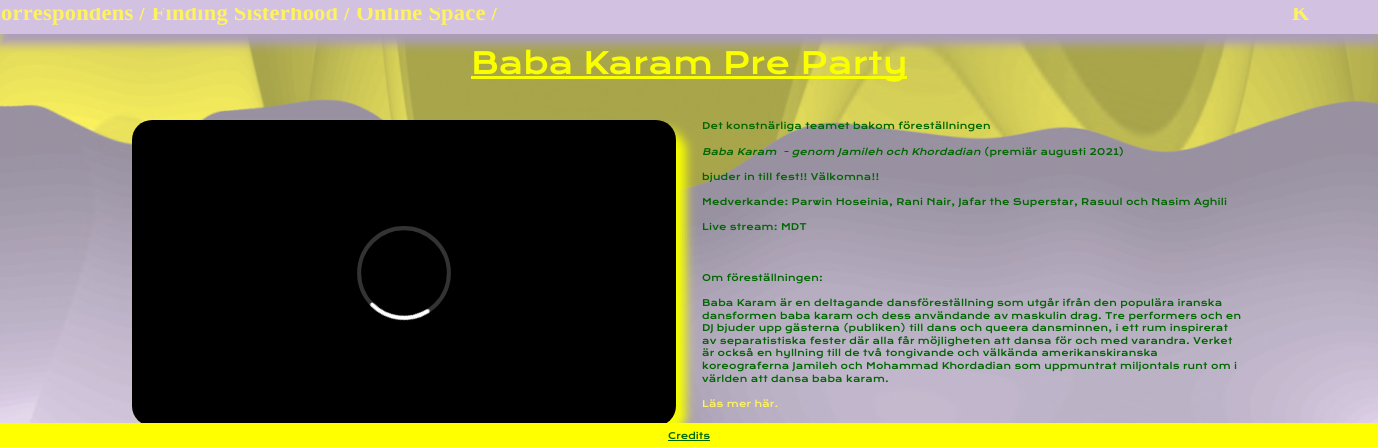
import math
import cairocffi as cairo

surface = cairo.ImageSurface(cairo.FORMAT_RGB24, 1378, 447)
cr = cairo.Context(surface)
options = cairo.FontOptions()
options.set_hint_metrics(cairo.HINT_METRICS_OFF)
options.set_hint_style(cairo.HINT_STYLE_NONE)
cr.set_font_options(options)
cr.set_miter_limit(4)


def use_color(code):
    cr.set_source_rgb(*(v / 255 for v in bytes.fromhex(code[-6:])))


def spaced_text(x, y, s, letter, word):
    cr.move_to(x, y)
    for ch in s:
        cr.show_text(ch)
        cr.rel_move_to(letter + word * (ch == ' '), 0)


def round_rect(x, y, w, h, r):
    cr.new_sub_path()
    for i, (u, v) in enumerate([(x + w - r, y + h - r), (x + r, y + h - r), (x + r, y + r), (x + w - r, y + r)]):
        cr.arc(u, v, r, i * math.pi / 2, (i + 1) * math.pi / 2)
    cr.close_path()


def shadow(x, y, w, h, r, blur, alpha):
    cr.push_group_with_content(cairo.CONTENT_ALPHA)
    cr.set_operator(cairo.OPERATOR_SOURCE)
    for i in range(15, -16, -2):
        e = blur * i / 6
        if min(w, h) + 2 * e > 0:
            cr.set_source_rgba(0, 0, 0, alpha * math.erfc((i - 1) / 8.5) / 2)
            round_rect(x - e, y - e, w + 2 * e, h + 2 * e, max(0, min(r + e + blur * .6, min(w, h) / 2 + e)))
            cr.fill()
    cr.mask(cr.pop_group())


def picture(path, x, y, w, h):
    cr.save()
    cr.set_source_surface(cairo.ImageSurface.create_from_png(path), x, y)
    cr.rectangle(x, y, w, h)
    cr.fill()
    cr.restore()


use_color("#ffffff")
cr.paint()
picture("img1.png", 0, 34, 1378, 389)
use_color("#ab9cbc")
shadow(0, 10, 1378, 34, 0, 5, 1)
use_color("#d2c1e1")
cr.rectangle(0, 0, 1378, 34)
cr.fill()
cr.save()
cr.rectangle(0, 8, 1309, 18)
cr.clip()
cr.select_font_face("Liberation Serif", cairo.FONT_SLANT_NORMAL, cairo.FONT_WEIGHT_BOLD)
cr.set_font_size(22.5)
use_color("#fff260")
spaced_text(1, 20, "orrespondens / Finding Sisterhood / Online Space /", 0.2, 0)
spaced_text(1292, 20, "K", 0.2, 0)
cr.restore()
use_color("#faff00")
cr.rectangle(471, 76, 436, 3)
cr.fill()
cr.select_font_face("Krona One")
cr.set_font_size(30)
cr.move_to(471, 74)
cr.show_text("Baba Karam Pre Party")
use_color("#f7ff00")
shadow(142, 130, 544, 306, 20, 5, 1)
picture("img2.png", 132, 120, 544, 303)
cr.set_font_size(9)
use_color("#006600")
spaced_text(702, 129, "Det konstnärliga teamet bakom föreställningen", 0.2, 0)
cr.select_font_face("Krona One", cairo.FONT_SLANT_ITALIC)
spaced_text(702, 155, "Baba Karam", 0.2, 0)
spaced_text(783, 155, "- genom Jamileh och Khordadian", 0.2, 0)
cr.select_font_face("Krona One")
spaced_text(984, 155, "(premiär augusti 2021)", 0.2, 0)
spaced_text(702, 180, "bjuder in till fest!! Välkomna!!", 0.2, 0)
spaced_text(702, 205, "Medverkande: Parwin Hoseinia, Rani Nair, Jafar the Superstar, Rasuul och Nasim Aghili", 0.2, 0)
spaced_text(702, 230, "Live stream: MDT", 0.2, 0)
spaced_text(702, 281, "Om föreställningen:", 0.2, 0)
spaced_text(702, 306, "Baba Karam är en deltagande dansföreställning som utgår ifrån den populära iranska", 0.2, 0)
spaced_text(702, 319, "dansformen baba karam och dess användande av maskulin drag. Tre performers och en", 0.2, 0)
spaced_text(702, 331, "DJ bjuder upp gästerna (publiken) till dans och queera dansminnen, i ett rum inspirerat", 0.2, 0)
spaced_text(702, 344, "av separatistiska fester där alla får möjligheten att dansa för och med varandra. Verket", 0.2, 0)
spaced_text(702, 356, "är också en hyllning till de två tongivande och välkända amerikanskiranska", 0.2, 0)
spaced_text(702, 369, "koreograferna Jamileh och Mohammad Khordadian som uppmuntrat miljontals runt om i", 0.2, 0)
spaced_text(702, 382, "världen att dansa baba karam.", 0.2, 0)
use_color("#fff260")
spaced_text(702, 407, "Läs mer här.", 0.2, 0)
use_color("#ffff00")
cr.rectangle(0, 423, 1378, 24)
cr.fill()
use_color("#006600")
cr.move_to(668, 439)
cr.show_text("Credits")
cr.rectangle(668, 440, 42, 1)
cr.fill()
surface.write_to_png("result.png")
